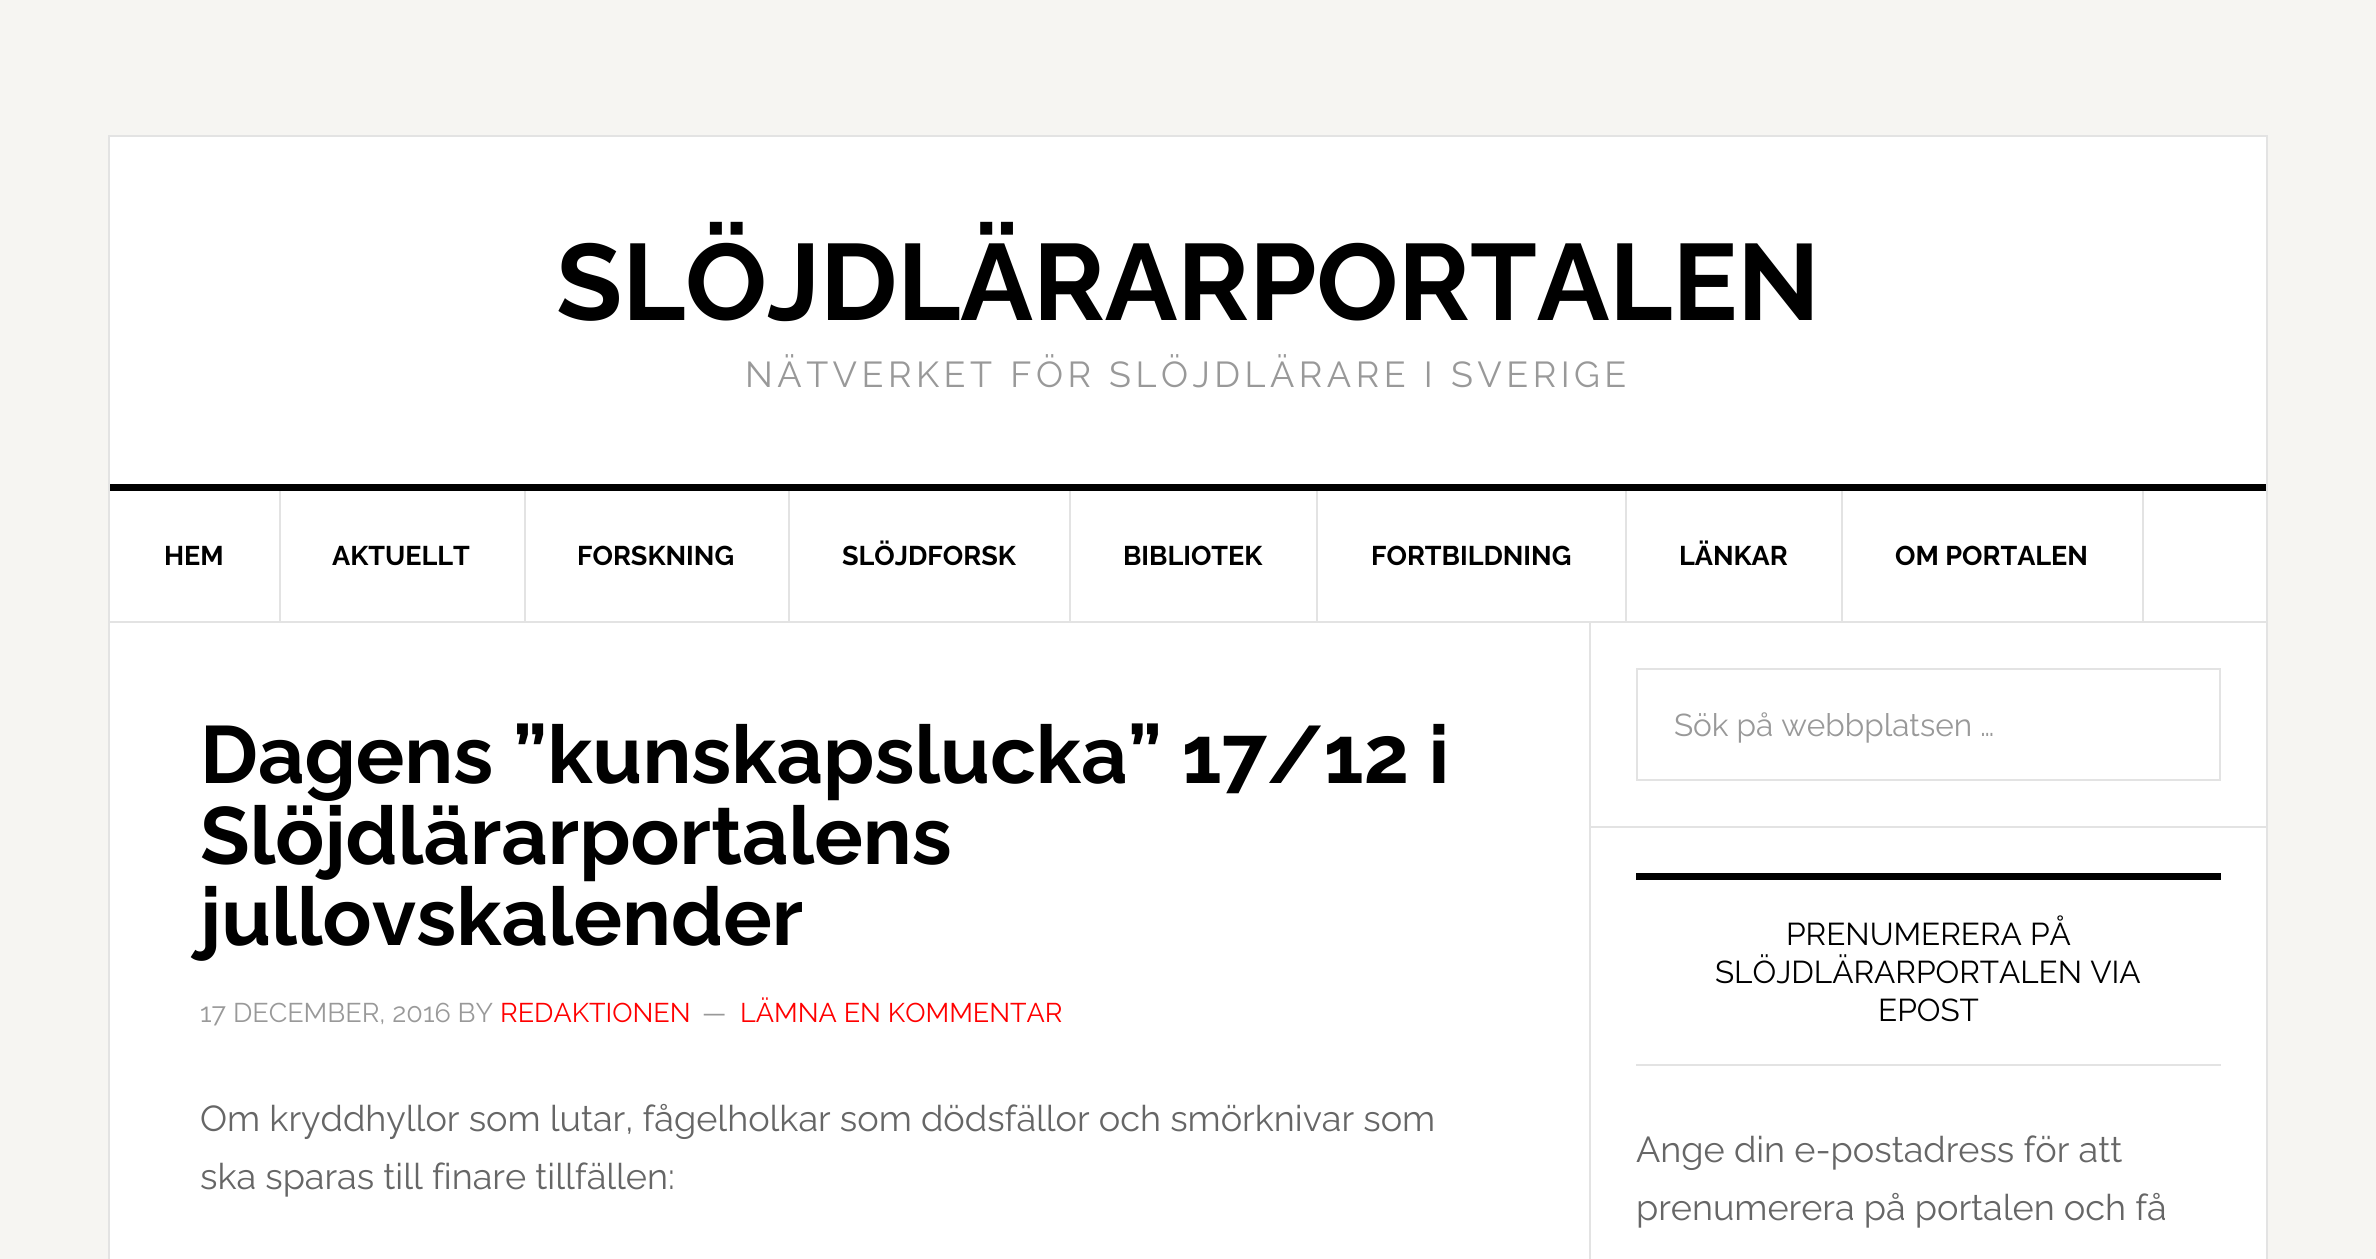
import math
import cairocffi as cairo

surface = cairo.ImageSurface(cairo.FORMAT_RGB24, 2376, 1259)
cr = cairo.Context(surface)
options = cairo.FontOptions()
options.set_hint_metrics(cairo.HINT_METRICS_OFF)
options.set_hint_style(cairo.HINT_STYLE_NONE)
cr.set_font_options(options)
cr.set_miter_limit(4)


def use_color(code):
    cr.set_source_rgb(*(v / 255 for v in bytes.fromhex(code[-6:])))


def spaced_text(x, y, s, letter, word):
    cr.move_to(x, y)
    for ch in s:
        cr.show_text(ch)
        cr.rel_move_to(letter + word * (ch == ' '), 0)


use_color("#f6f5f2")
cr.paint()
use_color("#ffffff")
cr.rectangle(109, 136, 2158, 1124)
cr.fill_preserve()
use_color("#e3e3e3")
cr.stroke()
use_color("#000000")
cr.rectangle(110, 484, 2156, 7)
cr.fill()
cr.select_font_face("Raleway", cairo.FONT_SLANT_NORMAL, cairo.FONT_WEIGHT_BOLD)
cr.set_font_size(108)
cr.move_to(556, 320)
cr.show_text("SLÖJDLÄRARPORTALEN")
cr.select_font_face("Raleway")
cr.set_font_size(36)
use_color("#999999")
spaced_text(745, 387, "NÄTVERKET FÖR SLÖJDLÄRARE I SVERIGE", 4.5, 0)
use_color("#e3e3e3")
cr.rectangle(110, 621, 2156, 2)
cr.fill()
cr.rectangle(279, 491, 2, 130)
cr.fill()
cr.select_font_face("Raleway", cairo.FONT_SLANT_NORMAL, cairo.FONT_WEIGHT_BOLD)
cr.set_font_size(27)
use_color("#000000")
cr.move_to(164, 565)
cr.show_text("HEM")
use_color("#e3e3e3")
cr.rectangle(524, 491, 2, 130)
cr.fill()
use_color("#000000")
cr.move_to(332, 565)
cr.show_text("AKTUELLT")
use_color("#e3e3e3")
cr.rectangle(788, 491, 2, 130)
cr.fill()
use_color("#000000")
cr.move_to(577, 565)
cr.show_text("FORSKNING")
use_color("#e3e3e3")
cr.rectangle(1069, 491, 2, 130)
cr.fill()
use_color("#000000")
cr.move_to(842, 565)
cr.show_text("SLÖJDFORSK")
use_color("#e3e3e3")
cr.rectangle(1316, 491, 2, 130)
cr.fill()
use_color("#000000")
cr.move_to(1123, 565)
cr.show_text("BIBLIOTEK")
use_color("#e3e3e3")
cr.rectangle(1625, 491, 2, 130)
cr.fill()
use_color("#000000")
cr.move_to(1371, 565)
cr.show_text("FORTBILDNING")
use_color("#e3e3e3")
cr.rectangle(1841, 491, 2, 130)
cr.fill()
use_color("#000000")
cr.move_to(1679, 565)
cr.show_text("LÄNKAR")
use_color("#e3e3e3")
cr.rectangle(2142, 491, 2, 130)
cr.fill()
use_color("#000000")
cr.move_to(1895, 565)
cr.show_text("OM PORTALEN")
use_color("#e3e3e3")
cr.rectangle(1589, 623, 2, 636)
cr.fill()
cr.set_font_size(81)
use_color("#000000")
cr.move_to(200, 783)
cr.show_text("Dagens ”kunskapslucka” 17/12 i")
cr.move_to(200, 864)
cr.show_text("Slöjdlärarportalens")
cr.move_to(200, 945)
cr.show_text("jullovskalender")
cr.select_font_face("Raleway")
cr.set_font_size(27)
use_color("#999999")
cr.move_to(200, 1022)
cr.show_text("17 DECEMBER, 2016 BY")
use_color("#ff0000")
cr.move_to(500, 1022)
cr.show_text("REDAKTIONEN")
use_color("#999999")
cr.move_to(702, 1022)
cr.show_text("—")
use_color("#ff0000")
cr.move_to(740, 1022)
cr.show_text("LÄMNA EN KOMMENTAR")
cr.set_font_size(36)
use_color("#666666")
cr.move_to(200, 1131)
cr.show_text("Om kryddhyllor som lutar, fågelholkar som dödsfällor och smörknivar som")
cr.move_to(200, 1189)
cr.show_text("ska sparas till finare tillfällen:")
use_color("#e3e3e3")
cr.rectangle(1591, 826, 675, 2)
cr.fill()
cr.rectangle(1637, 669, 583, 111)
cr.stroke()
cr.set_font_size(31.5)
use_color("#999999")
cr.move_to(1674, 736)
cr.show_text("Sök på webbplatsen …")
use_color("#000000")
cr.rectangle(1636, 873, 585, 7)
cr.fill()
use_color("#e3e3e3")
cr.rectangle(1636, 1064, 585, 2)
cr.fill()
use_color("#000000")
cr.move_to(1786, 945)
cr.show_text("PRENUMERERA PÅ")
cr.move_to(1715, 983)
cr.show_text("SLÖJDLÄRARPORTALEN VIA")
cr.move_to(1878, 1021)
cr.show_text("EPOST")
cr.set_font_size(36)
use_color("#666666")
cr.move_to(1636, 1162)
cr.show_text("Ange din e-postadress för att")
cr.move_to(1636, 1220)
cr.show_text("prenumerera på portalen och få")
surface.write_to_png("result.png")
